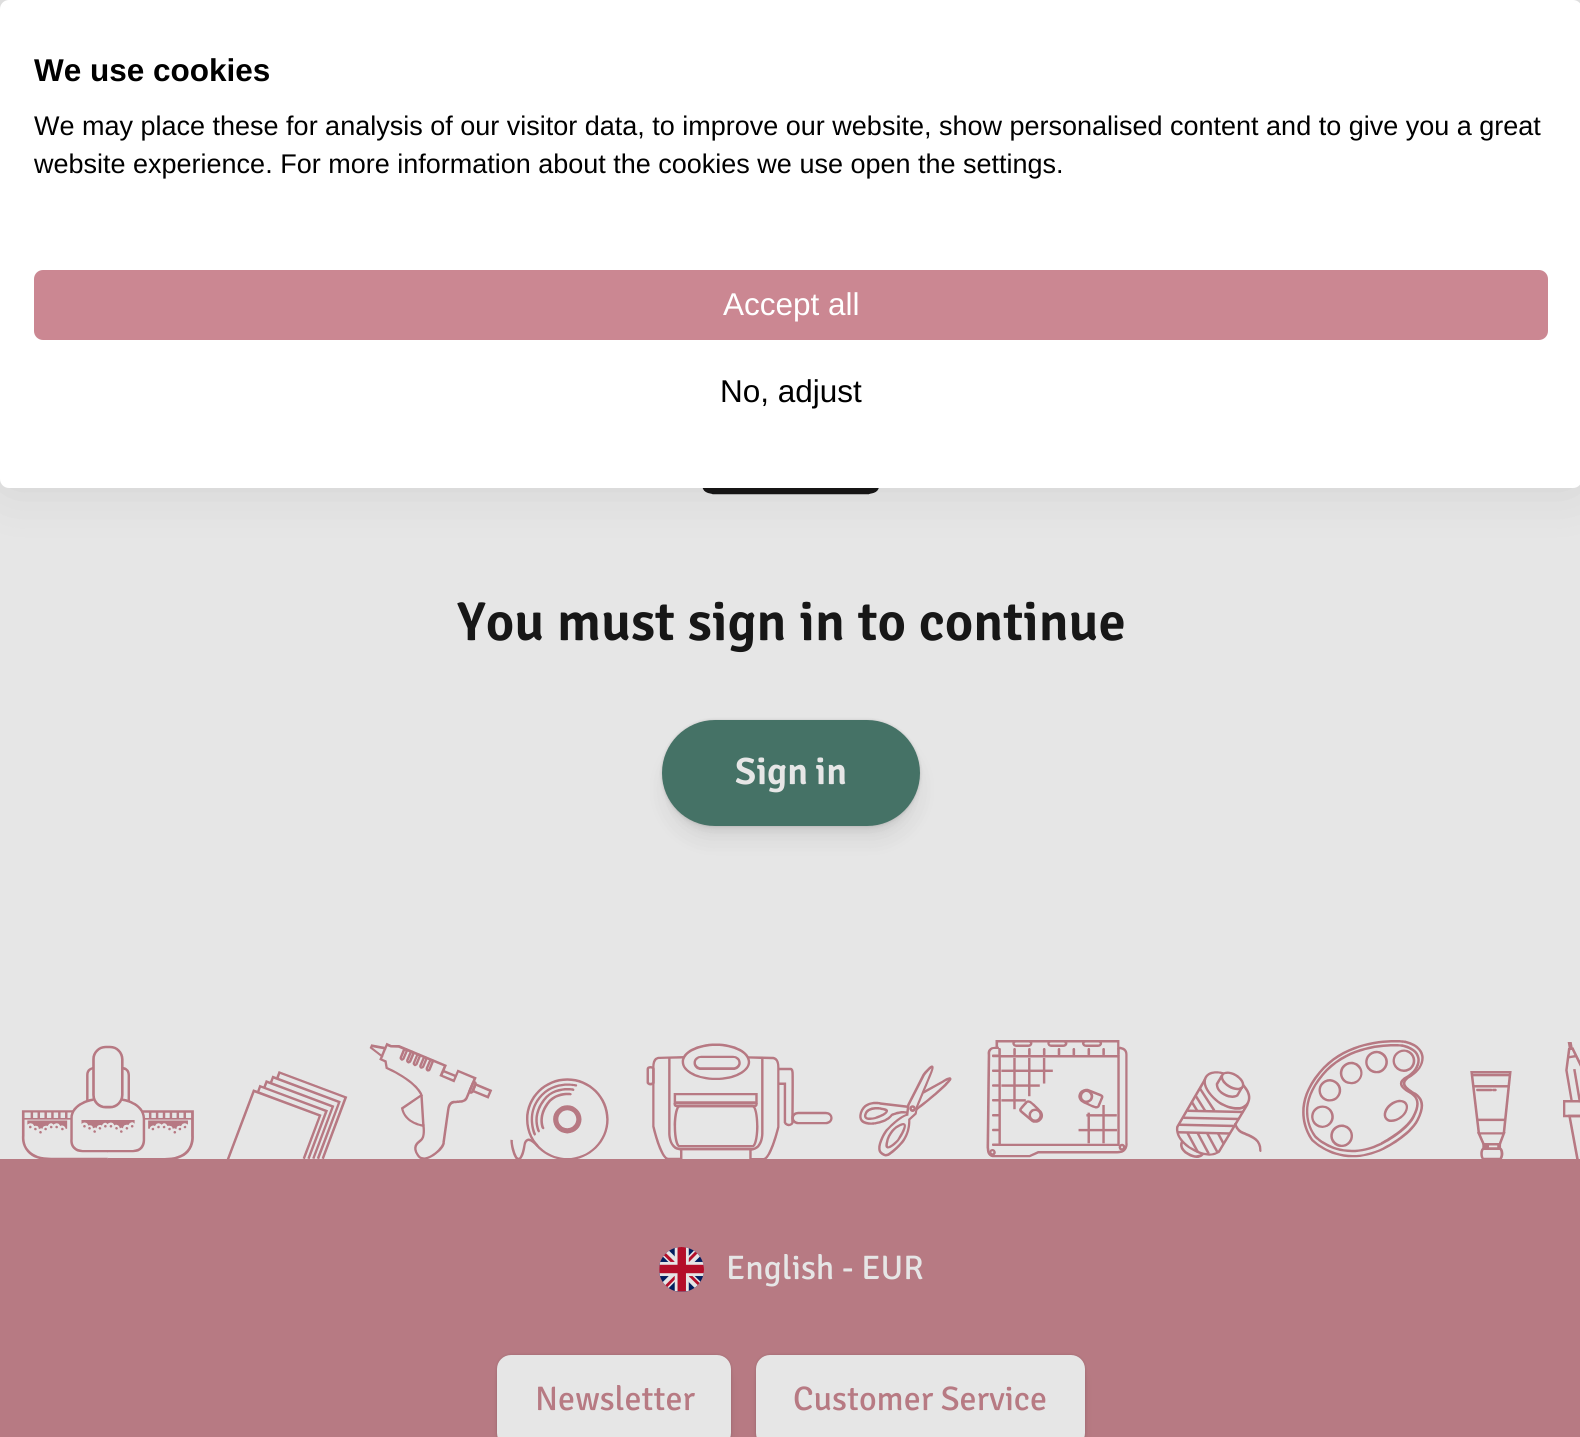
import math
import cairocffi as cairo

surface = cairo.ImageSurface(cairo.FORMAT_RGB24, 1580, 1437)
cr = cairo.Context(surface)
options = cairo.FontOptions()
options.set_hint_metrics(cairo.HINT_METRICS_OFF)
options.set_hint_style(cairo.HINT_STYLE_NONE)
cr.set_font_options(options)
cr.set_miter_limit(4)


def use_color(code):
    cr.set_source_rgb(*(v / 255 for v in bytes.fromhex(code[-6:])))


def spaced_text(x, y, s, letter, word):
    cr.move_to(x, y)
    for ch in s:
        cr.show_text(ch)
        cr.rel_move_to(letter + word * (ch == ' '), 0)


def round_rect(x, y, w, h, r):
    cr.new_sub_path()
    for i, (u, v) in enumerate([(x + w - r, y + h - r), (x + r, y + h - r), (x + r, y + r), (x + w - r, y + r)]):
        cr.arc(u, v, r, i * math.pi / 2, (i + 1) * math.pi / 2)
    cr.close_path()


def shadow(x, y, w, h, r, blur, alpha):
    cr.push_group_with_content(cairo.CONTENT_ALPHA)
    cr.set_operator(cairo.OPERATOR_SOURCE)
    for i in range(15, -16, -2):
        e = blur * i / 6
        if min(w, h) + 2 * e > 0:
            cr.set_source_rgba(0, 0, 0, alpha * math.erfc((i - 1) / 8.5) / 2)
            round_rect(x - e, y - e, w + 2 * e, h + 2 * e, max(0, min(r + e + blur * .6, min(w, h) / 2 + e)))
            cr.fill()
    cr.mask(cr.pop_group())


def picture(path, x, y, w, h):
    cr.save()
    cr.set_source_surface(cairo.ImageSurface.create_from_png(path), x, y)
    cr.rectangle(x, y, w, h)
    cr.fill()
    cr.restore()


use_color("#e6e6e6")
cr.paint()
picture("img1.png", 702, 488, 177, 7)
use_color("#000000")
shadow(0, 0, 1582, 488, 9, 27, 0.1)
use_color("#ffffff")
round_rect(0, 0, 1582, 488, 9)
cr.fill()
cr.select_font_face("Liberation Sans", cairo.FONT_SLANT_NORMAL, cairo.FONT_WEIGHT_BOLD)
cr.set_font_size(31.5)
use_color("#000000")
cr.move_to(34, 81)
cr.show_text("We use cookies")
cr.select_font_face("Liberation Sans")
cr.set_font_size(27)
cr.move_to(34, 135)
cr.show_text("We may place these for analysis of our visitor data, to improve our website, show personalised content and to give you a great")
cr.move_to(34, 173)
cr.show_text("website experience. For more information about the cookies we use open the settings.")
use_color("#cb8792")
round_rect(35, 271, 1512, 68, 8)
cr.fill_preserve()
cr.stroke()
cr.set_font_size(31.5)
use_color("#ffffff")
cr.move_to(723, 315)
cr.show_text("Accept all")
use_color("#000000")
cr.move_to(720, 402)
cr.show_text("No, adjust")
cr.select_font_face("Signika SemiBold")
cr.set_font_size(54.75)
use_color("#171717")
spaced_text(457, 640, "You must sign in to continue", 0, 0.75)
use_color("#000000")
shadow(666, 740, 252, 99, 49.5, 11, 0.08)
shadow(664, 727, 254, 103, 51.5, 3.5, 0.06)
shadow(662, 720, 258, 106, 53, 1.5, 0.15)
use_color("#457266")
round_rect(662, 720, 258, 106, 53)
cr.fill()
cr.set_font_size(38)
use_color("#e6e6e6")
spaced_text(735, 784, "Sign in", 0, -1)
use_color("#b77a83")
cr.rectangle(0, 1159, 1580, 278)
cr.fill()
picture("img2.png", 21, 1040, 1559, 119)
picture("img3.png", 659, 1247, 45, 45)
cr.select_font_face("Signika")
cr.set_font_size(34)
use_color("#e6e6e6")
cr.move_to(726, 1279)
cr.show_text("English - EUR")
use_color("#000000")
shadow(502, 1370, 227, 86, 11, 7, 0.08)
shadow(497, 1355, 234, 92, 14, 1.5, 0.15)
use_color("#e6e6e6")
round_rect(497, 1355, 234, 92, 14)
cr.fill()
use_color("#b77a83")
cr.move_to(535, 1410)
cr.show_text("Newsletter")
use_color("#000000")
shadow(761, 1370, 321, 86, 11, 7, 0.08)
shadow(756, 1355, 329, 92, 14, 1.5, 0.15)
use_color("#e6e6e6")
round_rect(756, 1355, 329, 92, 14)
cr.fill()
use_color("#b77a83")
cr.move_to(793, 1410)
cr.show_text("Customer Service")
surface.write_to_png("result.png")
